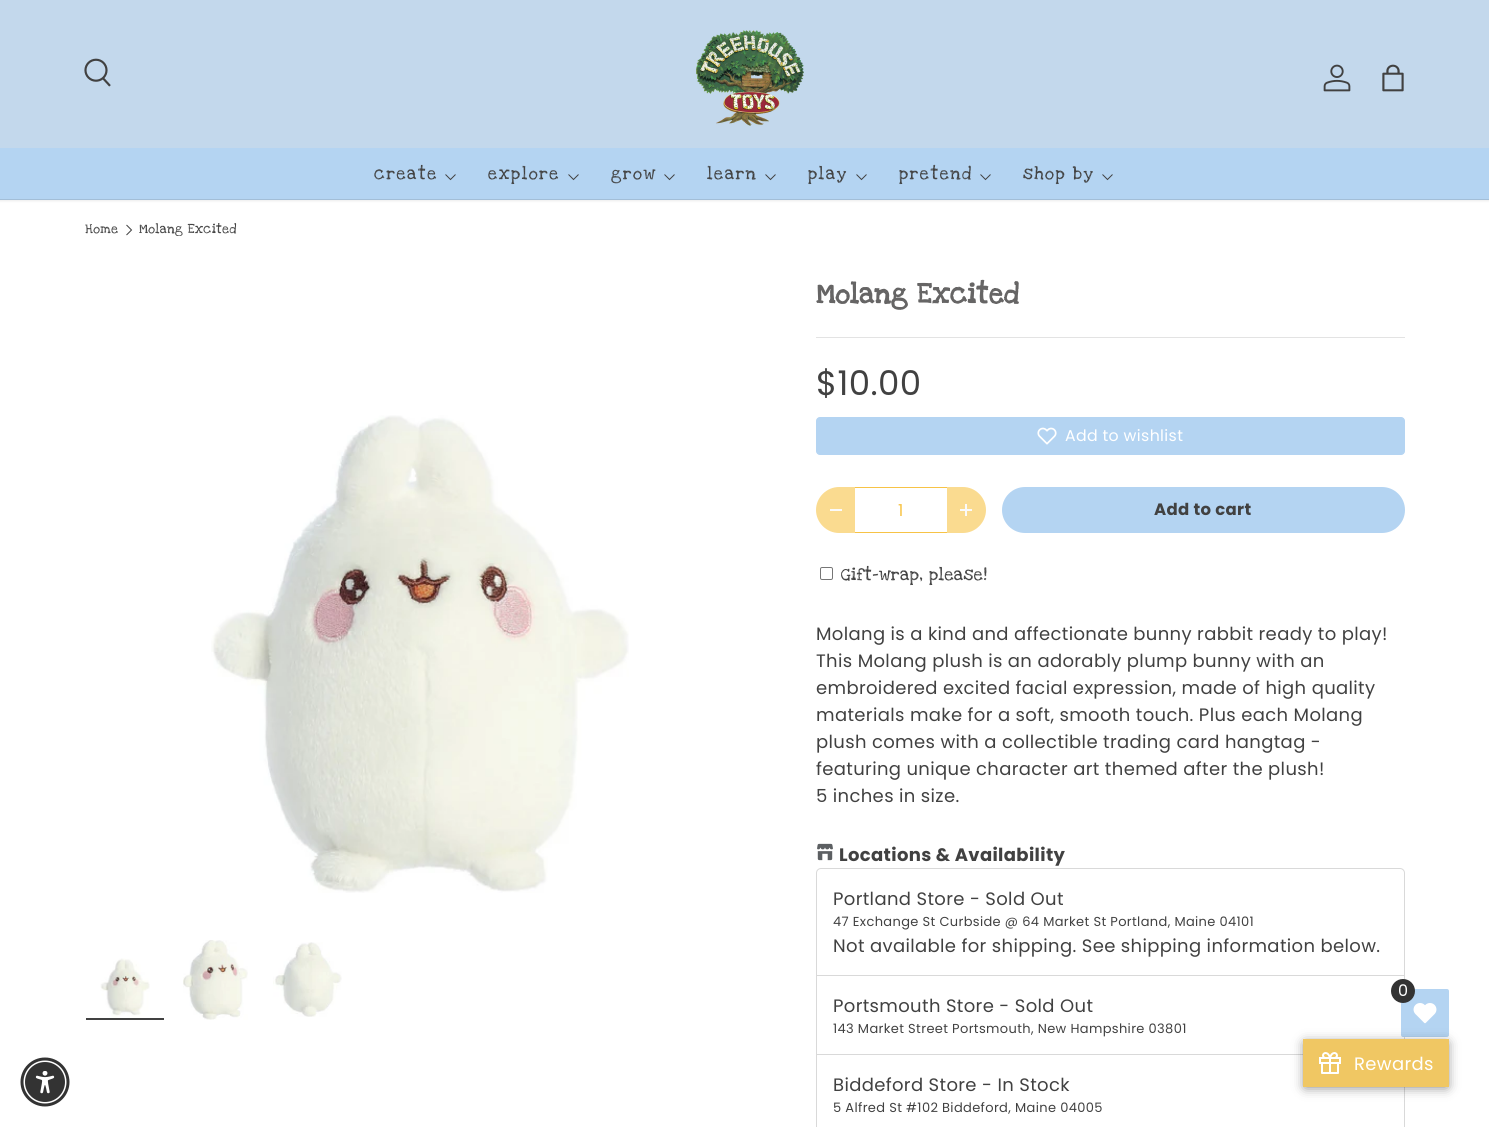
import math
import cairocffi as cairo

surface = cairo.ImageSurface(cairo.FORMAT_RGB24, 1489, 1127)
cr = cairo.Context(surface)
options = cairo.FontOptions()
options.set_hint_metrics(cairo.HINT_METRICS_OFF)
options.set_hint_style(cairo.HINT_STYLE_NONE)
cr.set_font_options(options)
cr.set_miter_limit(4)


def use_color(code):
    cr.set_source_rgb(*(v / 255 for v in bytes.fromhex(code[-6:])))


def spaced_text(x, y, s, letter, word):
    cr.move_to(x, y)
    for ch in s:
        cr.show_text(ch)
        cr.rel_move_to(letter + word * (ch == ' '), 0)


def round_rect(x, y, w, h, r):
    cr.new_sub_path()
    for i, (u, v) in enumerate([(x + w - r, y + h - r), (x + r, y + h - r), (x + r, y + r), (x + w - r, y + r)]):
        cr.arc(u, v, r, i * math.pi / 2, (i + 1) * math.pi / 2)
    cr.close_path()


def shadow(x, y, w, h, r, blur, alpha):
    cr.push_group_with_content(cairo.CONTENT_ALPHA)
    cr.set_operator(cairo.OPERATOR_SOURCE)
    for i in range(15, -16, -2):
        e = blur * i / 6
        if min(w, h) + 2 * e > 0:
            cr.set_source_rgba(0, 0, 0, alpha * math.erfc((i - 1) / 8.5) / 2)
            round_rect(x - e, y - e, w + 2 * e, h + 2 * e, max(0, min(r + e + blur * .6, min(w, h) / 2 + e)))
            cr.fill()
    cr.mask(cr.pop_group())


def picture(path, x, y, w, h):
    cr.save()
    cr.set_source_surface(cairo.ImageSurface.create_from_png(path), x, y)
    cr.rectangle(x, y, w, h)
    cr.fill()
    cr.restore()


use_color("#ffffff")
cr.paint()
use_color("#000000")
shadow(-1, -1, 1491, 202, 0, 1.5, 0.08)
use_color("#c3d8ec")
cr.rectangle(0, 0, 1489, 148)
cr.fill()
picture("img1.png", 84, 58, 27, 29)
picture("img2.png", 696, 30, 108, 96)
picture("img3.png", 1323, 64, 28, 28)
picture("img4.png", 1382, 64, 22, 28)
use_color("#b4d4f2")
cr.rectangle(0, 148, 1489, 51)
cr.fill()
cr.select_font_face("Love Ya Like A Sister")
cr.set_font_size(18)
use_color("#414141")
spaced_text(374, 179, "create", 1.5, 0)
cr.new_path()
cr.move_to(455.5, 174.5)
cr.line_to(450.5, 179.5)
cr.line_to(445.5, 174.5)
cr.set_line_width(1)
cr.stroke()
spaced_text(488, 179, "explore", 1.5, 0)
cr.new_path()
cr.move_to(578.5, 174.5)
cr.line_to(573.5, 179.5)
cr.line_to(568.5, 174.5)
cr.stroke()
spaced_text(611, 179, "grow", 1.5, 0)
cr.new_path()
cr.move_to(674.5, 174.5)
cr.line_to(669.5, 179.5)
cr.line_to(664.5, 174.5)
cr.stroke()
spaced_text(707, 179, "learn", 1.5, 0)
cr.new_path()
cr.move_to(775.5, 174.5)
cr.line_to(770.5, 179.5)
cr.line_to(765.5, 174.5)
cr.stroke()
spaced_text(808, 179, "play", 1.5, 0)
cr.new_path()
cr.move_to(866.5, 174.5)
cr.line_to(861.5, 179.5)
cr.line_to(856.5, 174.5)
cr.stroke()
spaced_text(899, 179, "pretend", 1.5, 0)
cr.new_path()
cr.move_to(990.5, 174.5)
cr.line_to(985.5, 179.5)
cr.line_to(980.5, 174.5)
cr.stroke()
spaced_text(1023, 179, "shop by", 1.5, 0)
cr.new_path()
cr.move_to(1112.5, 174.5)
cr.line_to(1107.5, 179.5)
cr.line_to(1102.5, 174.5)
cr.stroke()
use_color("#a3bed7")
cr.rectangle(0, 199, 1489, 1)
cr.fill()
cr.set_font_size(13.5)
use_color("#414141")
spaced_text(85, 233, "Home", 0.35, 0)
cr.new_path()
cr.move_to(126.5, 225)
cr.line_to(131.5, 230)
cr.line_to(126.5, 235)
cr.stroke()
cr.save()
cr.rectangle(139, 223, 98, 13)
cr.clip()
spaced_text(139, 233, "Molang Excited", 0.35, 0)
cr.restore()
picture("img5.png", 211, 415, 418, 478)
picture("img6.png", 100, 958, 50, 60)
cr.rectangle(86, 1018, 78, 2)
cr.fill()
picture("img7.png", 183, 940, 65, 80)
picture("img8.png", 273, 942, 69, 75)
cr.select_font_face("Love Ya Like A Sister", cairo.FONT_SLANT_NORMAL, cairo.FONT_WEIGHT_BOLD)
cr.set_font_size(28.5)
use_color("#666565")
spaced_text(816, 303, "Molang Excited", 0.5, 0)
use_color("#e3e3e3")
cr.rectangle(816, 337, 589, 1)
cr.fill()
cr.select_font_face("Poppins")
cr.set_font_size(34)
use_color("#414141")
spaced_text(816, 395, "$10.00", 0.35, 0)
use_color("#b4d4f2")
round_rect(816.5, 417.5, 588, 37, 3.5)
cr.fill_preserve()
cr.stroke()
picture("img9.png", 1037, 427, 20, 18)
cr.set_font_size(15.75)
use_color("#ffffff")
spaced_text(1065, 441, "Add to wishlist", 0.35, 0)
use_color("#fadb90")
cr.new_path()
cr.move_to(839, 487)
cr.line_to(855, 487)
cr.line_to(855, 533)
cr.line_to(839, 533)
cr.curve_to(826.5, 533, 816, 522.5, 816, 510)
cr.curve_to(816, 497.5, 826.5, 487, 839, 487)
cr.close_path()
cr.fill()
use_color("#fafafa")
cr.rectangle(830, 509, 12, 2)
cr.fill()
use_color("#f7c346")
cr.rectangle(855, 532, 92, 1)
cr.fill()
cr.rectangle(855, 487, 92, 1)
cr.fill()
cr.set_font_size(16.5)
cr.move_to(898, 516)
cr.show_text("1")
use_color("#fadb90")
cr.new_path()
cr.move_to(947, 487)
cr.line_to(963, 487)
cr.curve_to(975.5, 487, 986, 497.5, 986, 510)
cr.curve_to(986, 522.5, 975.5, 533, 963, 533)
cr.line_to(947, 533)
cr.close_path()
cr.fill()
use_color("#fafafa")
cr.rectangle(960, 509, 12, 2)
cr.fill()
cr.rectangle(965, 504, 2, 12)
cr.fill()
gradient = cairo.LinearGradient(226, 367, 1375, 653)
gradient.add_color_stop_rgba(0.6, 0.682, 0.776, 0.863, 1)
gradient.add_color_stop_rgba(0.6, 0.706, 0.831, 0.949, 1)
gradient.add_color_stop_rgba(1, 0.706, 0.831, 0.949, 1)
cr.set_source(gradient)
round_rect(1002, 487, 403, 46, 23)
cr.fill()
cr.select_font_face("Poppins", cairo.FONT_SLANT_NORMAL, cairo.FONT_WEIGHT_BOLD)
use_color("#414141")
spaced_text(1154, 515, "Add to cart", 0.35, 0)
round_rect(820.5, 567.5, 12, 12, 1.5)
use_color("#767676")
cr.stroke()
cr.select_font_face("Love Ya Like A Sister")
cr.set_font_size(18)
use_color("#414141")
spaced_text(841, 580, "Gift-wrap, please!", 0.35, 0)
cr.select_font_face("Poppins")
spaced_text(816, 640, "Molang is a kind and affectionate bunny rabbit ready to play!", 0.35, 0)
spaced_text(816, 667, "This Molang plush is an adorably plump bunny with an", 0.35, 0)
spaced_text(816, 694, "embroidered excited facial expression, made of high quality", 0.35, 0)
spaced_text(816, 721, "materials make for a soft, smooth touch. Plus each Molang", 0.35, 0)
spaced_text(816, 748, "plush comes with a collectible trading card hangtag -", 0.35, 0)
spaced_text(816, 775, "featuring unique character art themed after the plush!", 0.35, 0)
spaced_text(816, 802, "5 inches in size.", 0.35, 0)
picture("img10.png", 817, 843, 16, 18)
cr.select_font_face("Poppins", cairo.FONT_SLANT_NORMAL, cairo.FONT_WEIGHT_BOLD)
spaced_text(839, 861, "Locations & Availability", 0.35, 0)
round_rect(816.5, 868.5, 588, 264, 4.5)
use_color("#d9d9d9")
cr.stroke()
cr.select_font_face("Poppins")
use_color("#414141")
spaced_text(833, 905, "Portland Store - Sold Out", 0.35, 0)
cr.set_font_size(13)
spaced_text(833, 926, "47 Exchange St Curbside @ 64 Market St Portland, Maine 04101", 0.35, 0)
cr.set_font_size(18)
spaced_text(833, 952, "Not available for shipping. See shipping information below.", 0.35, 0)
use_color("#d9d9d9")
cr.rectangle(817, 975, 587, 1)
cr.fill()
use_color("#414141")
spaced_text(833, 1012, "Portsmouth Store - Sold Out", 0.35, 0)
cr.set_font_size(13)
spaced_text(833, 1033, "143 Market Street Portsmouth, New Hampshire 03801", 0.35, 0)
use_color("#d9d9d9")
cr.rectangle(817, 1054, 486, 1)
cr.fill()
cr.set_font_size(18)
use_color("#414141")
spaced_text(833, 1091, "Biddeford Store - In Stock", 0.35, 0)
cr.set_font_size(13)
spaced_text(833, 1112, "5 Alfred St #102 Biddeford, Maine 04005", 0.35, 0)
use_color("#b4d4f2")
round_rect(1401, 989, 48, 48, 2)
cr.fill()
use_color("#333333")
cr.arc(1403, 991, 12, 0, 2 * math.pi)
cr.fill()
cr.set_font_size(16)
use_color("#ffffff")
spaced_text(1398, 996, "0", 0.35, 0)
picture("img11.png", 1413, 1003, 24, 21)
use_color("#333333")
cr.arc(45, 1082, 24.5, 0, 2 * math.pi)
cr.fill()
use_color("#ffffff")
cr.arc(45, 1082, 21.5, 0, 2 * math.pi)
cr.fill()
use_color("#333333")
cr.arc(45, 1082, 20, 0, 2 * math.pi)
cr.fill()
picture("img12.png", 35, 1071, 20, 23)
use_color("#000000")
shadow(1305, 1043, 142, 44, 0, 6, 0.5)
use_color("#f0c763")
cr.rectangle(1303, 1039, 146, 48)
cr.fill()
picture("img13.png", 1319, 1052, 22, 22)
cr.set_font_size(18)
use_color("#ffffff")
spaced_text(1354, 1070, "Rewards", 0.35, 0)
surface.write_to_png("result.png")
